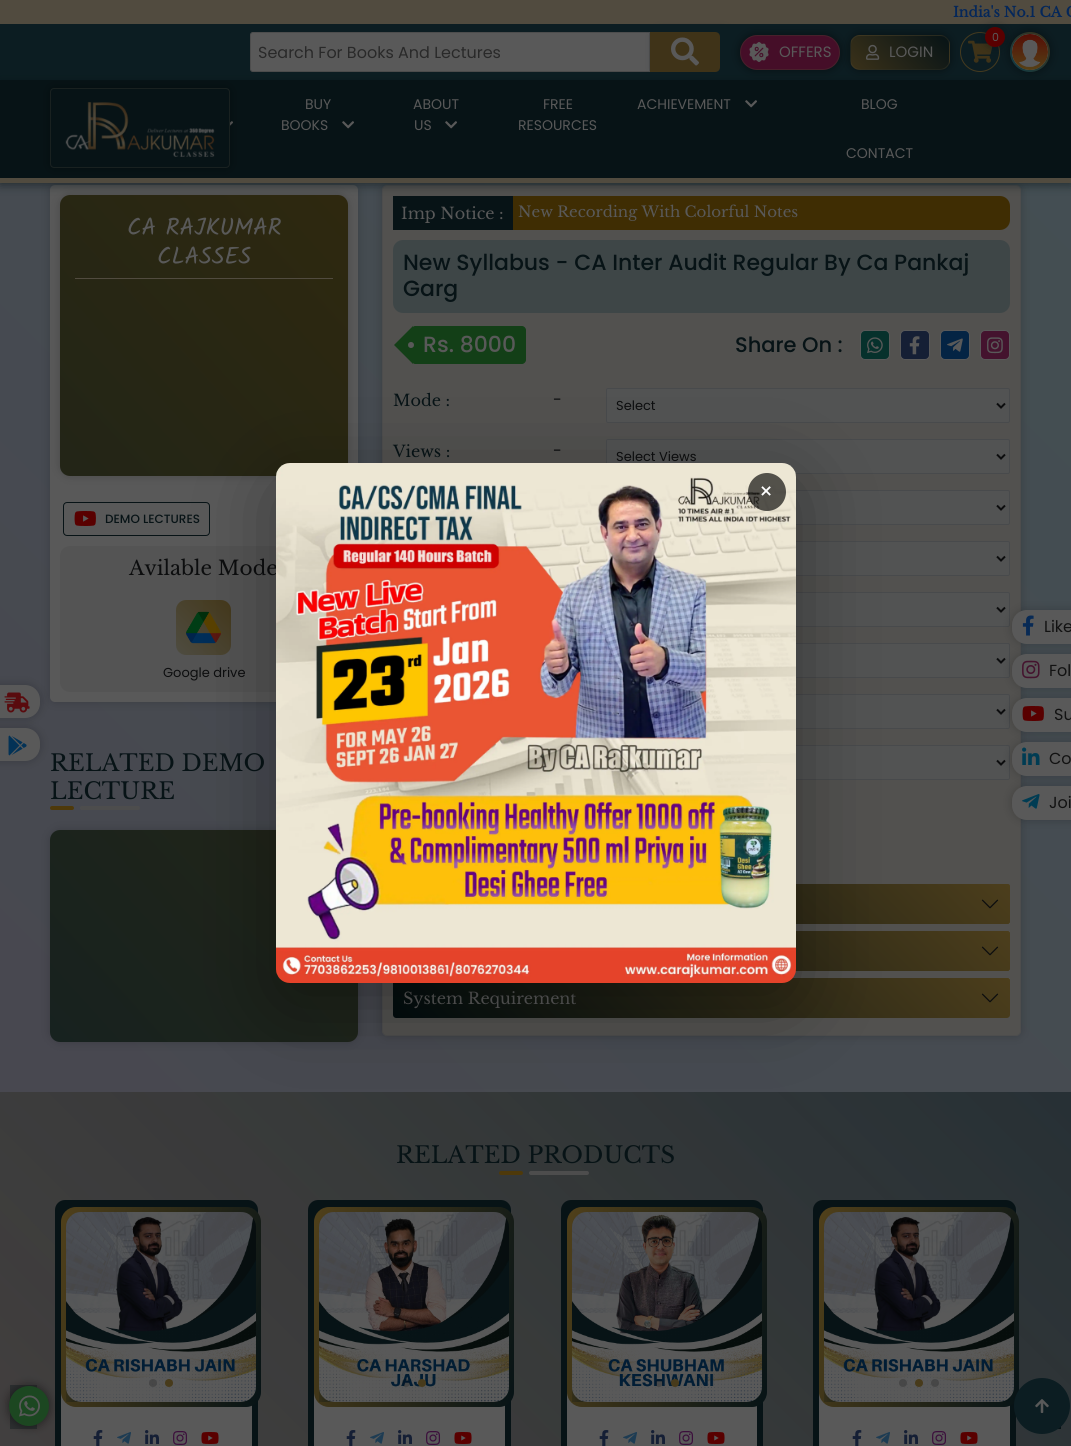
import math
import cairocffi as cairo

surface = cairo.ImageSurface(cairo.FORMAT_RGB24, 1071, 1446)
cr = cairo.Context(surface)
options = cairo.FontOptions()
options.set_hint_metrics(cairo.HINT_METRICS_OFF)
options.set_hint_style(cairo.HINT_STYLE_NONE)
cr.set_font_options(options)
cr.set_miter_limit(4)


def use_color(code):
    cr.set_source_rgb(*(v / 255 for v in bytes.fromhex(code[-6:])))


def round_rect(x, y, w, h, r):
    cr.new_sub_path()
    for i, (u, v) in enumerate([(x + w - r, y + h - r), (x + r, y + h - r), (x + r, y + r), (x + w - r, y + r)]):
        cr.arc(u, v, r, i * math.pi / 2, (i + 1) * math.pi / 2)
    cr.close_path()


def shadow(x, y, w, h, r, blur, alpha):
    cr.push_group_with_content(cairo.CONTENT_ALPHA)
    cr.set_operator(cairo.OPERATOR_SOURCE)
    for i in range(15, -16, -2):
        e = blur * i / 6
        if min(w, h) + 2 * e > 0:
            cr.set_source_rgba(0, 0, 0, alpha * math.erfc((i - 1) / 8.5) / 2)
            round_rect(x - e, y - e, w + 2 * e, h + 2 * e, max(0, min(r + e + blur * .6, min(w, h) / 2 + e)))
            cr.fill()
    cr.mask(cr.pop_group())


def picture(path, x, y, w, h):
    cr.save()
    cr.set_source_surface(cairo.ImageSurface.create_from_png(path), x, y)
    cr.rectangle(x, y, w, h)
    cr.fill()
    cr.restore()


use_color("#ffffff")
cr.paint()
gradient = cairo.LinearGradient(-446, 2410, 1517, 446)
gradient.add_color_stop_rgba(0, 0.298, 0.259, 0.302, 1)
gradient.add_color_stop_rgba(1, 0.263, 0.31, 0.325, 1)
cr.set_source(gradient)
cr.rectangle(0, 183, 1071, 1263)
cr.fill()
use_color("#514b3f")
cr.rectangle(0, 0, 1071, 24)
cr.fill()
cr.select_font_face("Libre Baskerville", cairo.FONT_SLANT_NORMAL, cairo.FONT_WEIGHT_BOLD)
cr.set_font_size(14)
use_color("#052759")
cr.move_to(953, 17)
cr.show_text("India's No.1 CA C")
use_color("#0c1d22")
cr.rectangle(0, 24, 1071, 56)
cr.fill()
use_color("#595959")
cr.new_path()
cr.move_to(253, 32.5)
cr.line_to(649.5, 32.5)
cr.line_to(649.5, 71.5)
cr.line_to(253, 71.5)
cr.curve_to(251.5, 71.5, 250.5, 70.5, 250.5, 69)
cr.line_to(250.5, 35)
cr.curve_to(250.5, 33.5, 251.5, 32.5, 253, 32.5)
cr.close_path()
cr.fill_preserve()
use_color("#4d4d4d")
cr.set_line_width(1)
cr.stroke()
cr.select_font_face("Poppins")
cr.set_font_size(16)
use_color("#292929")
cr.move_to(258, 58)
cr.show_text("Search For Books And Lectures")
use_color("#0c1d22")
shadow(657, 32, 70, 40, 5, 5, 1)
use_color("#3f3318")
cr.new_path()
cr.move_to(650, 32)
cr.line_to(715, 32)
cr.curve_to(718, 32, 720, 34, 720, 37)
cr.line_to(720, 67)
cr.curve_to(720, 70, 718, 72, 715, 72)
cr.line_to(650, 72)
cr.close_path()
cr.fill()
picture("img1.png", 671, 37, 28, 29)
use_color("#000000")
shadow(850, 35, 100, 35, 10, 5, 0.46)
cr.arc(980, 52, 19.5, 0, 2 * math.pi)
cr.set_source_rgba(0.306, 0.247, 0.122, 0.86)
cr.stroke()
picture("img2.png", 968, 40, 25, 23)
use_color("#071316")
shadow(985, 27, 20, 20, 10, 5, 0.52)
use_color("#590000")
cr.arc(995, 37, 10, 0, 2 * math.pi)
cr.fill()
cr.set_font_size(11)
use_color("#595959")
cr.move_to(992, 41)
cr.show_text("0")
cr.save()
round_rect(850, 35, 100, 35, 10)
cr.clip()
gradient = cairo.LinearGradient(867, 52, 933, -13)
gradient.add_color_stop_rgba(0, 0.227, 0.192, 0.098, 1)
gradient.add_color_stop_rgba(1, 0.027, 0.075, 0.086, 1)
cr.set_source(gradient)
cr.rectangle(851, 35, 98, 1)
cr.fill()
gradient = cairo.LinearGradient(769, 85, 835, 20)
gradient.add_color_stop_rgba(0, 0.227, 0.192, 0.098, 1)
gradient.add_color_stop_rgba(1, 0.027, 0.075, 0.086, 1)
cr.set_source(gradient)
cr.rectangle(850, 36, 1, 33)
cr.fill()
gradient = cairo.LinearGradient(867, 85, 933, 20)
gradient.add_color_stop_rgba(0, 0.227, 0.192, 0.098, 1)
gradient.add_color_stop_rgba(1, 0.027, 0.075, 0.086, 1)
cr.set_source(gradient)
cr.rectangle(851, 36, 98, 33)
cr.fill()
gradient = cairo.LinearGradient(867, 118, 933, 53)
gradient.add_color_stop_rgba(0, 0.227, 0.192, 0.098, 1)
gradient.add_color_stop_rgba(1, 0.027, 0.075, 0.086, 1)
cr.set_source(gradient)
cr.rectangle(851, 69, 98, 1)
cr.fill()
gradient = cairo.LinearGradient(965, 85, 1031, 20)
gradient.add_color_stop_rgba(0, 0.227, 0.192, 0.098, 1)
gradient.add_color_stop_rgba(1, 0.027, 0.075, 0.086, 1)
cr.set_source(gradient)
cr.rectangle(949, 36, 1, 33)
cr.fill()
cr.restore()
round_rect(850.5, 35.5, 99, 34, 9.5)
cr.set_source_rgba(0.31, 0.278, 0.2, 0.31)
cr.stroke()
use_color("#000000")
shadow(740, 35, 100, 35, 17.5, 5, 0.46)
use_color("#450e28")
round_rect(740, 35, 100, 35, 17.5)
cr.fill()
round_rect(740.5, 35.5, 99, 34, 17)
cr.set_source_rgba(0.31, 0.278, 0.2, 0.31)
cr.stroke()
picture("img3.png", 749, 42, 20, 20)
cr.set_font_size(15)
use_color("#595959")
cr.move_to(779, 57)
cr.show_text("OFFERS")
picture("img4.png", 866, 44, 14, 16)
cr.move_to(889, 57)
cr.show_text("LOGIN")
use_color("#000000")
shadow(1010, 32, 40, 40, 20, 5, 0.42)
gradient = cairo.LinearGradient(1010, 72, 1050, 32)
gradient.add_color_stop_rgba(0, 0.059, 0.235, 0.278, 1)
gradient.add_color_stop_rgba(1, 0.243, 0.196, 0.094, 1)
cr.set_source(gradient)
cr.arc(1030, 52, 20, 0, 2 * math.pi)
cr.fill()
use_color("#595959")
cr.arc(1030, 52, 18, 0, 2 * math.pi)
cr.fill()
picture("img5.png", 1012, 34, 36, 36)
use_color("#000000")
shadow(50, 185, 308, 517, 5, 5, 0.18)
shadow(382, 185, 639, 851, 5, 5, 0.2)
use_color("#071316")
cr.rectangle(0, 80, 1071, 98)
cr.fill()
use_color("#595959")
round_rect(50, 185, 308, 517, 5)
cr.fill()
use_color("#000000")
shadow(60, 195, 288, 281, 10, 5, 0.18)
gradient = cairo.LinearGradient(-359, 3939, 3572, 399)
gradient.add_color_stop_rgba(0.1, 0.027, 0.075, 0.086, 1)
gradient.add_color_stop_rgba(0.38, 0.063, 0.125, 0.141, 1)
gradient.add_color_stop_rgba(0.68, 0.247, 0.176, 0.012, 1)
gradient.add_color_stop_rgba(0.98, 0.227, 0.196, 0.122, 1)
cr.set_source(gradient)
round_rect(60, 195, 288, 281, 10)
cr.fill()
use_color("#52514f")
round_rect(382.5, 185.5, 638, 850, 4.5)
cr.fill_preserve()
use_color("#4d4d4d")
cr.stroke()
use_color("#3f2d03")
cr.new_path()
cr.move_to(393, 196)
cr.line_to(1000, 196)
cr.curve_to(1005.5, 196, 1010, 200.5, 1010, 206)
cr.line_to(1010, 220)
cr.curve_to(1010, 225.5, 1005.5, 230, 1000, 230)
cr.line_to(393, 230)
cr.close_path()
cr.fill()
use_color("#071316")
cr.rectangle(393, 196, 120, 34)
cr.fill()
cr.save()
cr.set_fill_rule(cairo.FILL_RULE_EVEN_ODD)
cr.new_path()
cr.move_to(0, 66)
cr.line_to(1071, 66)
cr.line_to(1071, 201)
cr.line_to(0, 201)
cr.close_path()
cr.move_to(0, 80)
cr.line_to(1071, 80)
cr.line_to(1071, 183)
cr.line_to(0, 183)
cr.close_path()
cr.clip()
use_color("#071316")
shadow(0, 82, 1071, 103, 0, 5, 0.58)
cr.restore()
use_color("#514b3f")
cr.rectangle(0, 178, 1071, 5)
cr.fill()
picture("img7.png", 230, 121, 3, 5)
use_color("#000000")
shadow(50, 88, 180, 80, 4, 5, 0.31)
use_color("#071316")
round_rect(50.5, 88.5, 179, 79, 3.5)
cr.fill_preserve()
use_color("#192120")
cr.stroke()
picture("img6.png", 65, 102, 150, 55)
cr.set_font_size(14)
use_color("#595959")
cr.move_to(305, 109)
cr.show_text("BUY")
cr.move_to(281, 130)
cr.show_text("BOOKS")
picture("img8.png", 342, 121, 12, 8)
cr.move_to(413, 109)
cr.show_text("ABOUT")
cr.move_to(414, 130)
cr.show_text("US")
picture("img8.png", 445, 121, 12, 8)
cr.move_to(543, 109)
cr.show_text("FREE")
cr.move_to(518, 130)
cr.show_text("RESOURCES")
cr.move_to(637, 109)
cr.show_text("ACHIEVEMENT")
picture("img8.png", 745, 100, 12, 8)
cr.move_to(861, 109)
cr.show_text("BLOG")
cr.move_to(846, 158)
cr.show_text("CONTACT")
use_color("#514b3f")
cr.rectangle(75, 278, 258, 1)
cr.fill()
cr.select_font_face("Kalam")
cr.set_font_size(24)
use_color("#595959")
cr.move_to(127, 235)
cr.show_text("CA RAJKUMAR")
cr.move_to(157, 264)
cr.show_text("CLASSES")
round_rect(63.5, 502.5, 146, 33, 3.5)
use_color("#071316")
cr.stroke()
picture("img9.png", 74, 511, 22, 15)
cr.select_font_face("Poppins Medium")
cr.set_font_size(12)
cr.move_to(105, 523)
cr.show_text("DEMO LECTURES")
use_color("#545454")
round_rect(60, 546, 288, 146, 10)
cr.fill()
cr.select_font_face("Libre Baskerville")
cr.set_font_size(20)
use_color("#0c0d0e")
cr.move_to(129, 575)
cr.show_text("Avilable Mode")
gradient = cairo.LinearGradient(176, 655, 231, 600)
gradient.add_color_stop_rgba(0, 0.306, 0.298, 0.255, 1)
gradient.add_color_stop_rgba(1, 0.271, 0.224, 0.106, 1)
cr.set_source(gradient)
round_rect(176, 600, 55, 55, 10)
cr.fill()
picture("img10.png", 186, 611, 35, 33)
cr.select_font_face("Poppins")
cr.set_font_size(13)
use_color("#0c0d0e")
cr.move_to(163, 677)
cr.show_text("Google drive")
cr.select_font_face("Libre Baskerville")
cr.set_font_size(23)
use_color("#071316")
cr.move_to(50, 771)
cr.show_text("RELATED DEMO")
cr.move_to(50, 799)
cr.show_text("LECTURE")
use_color("#4e390a")
round_rect(50, 806, 24, 4, 2)
cr.fill()
use_color("#4d4d4d")
round_rect(80, 806, 60, 4, 2)
cr.fill()
use_color("#000000")
shadow(50, 830, 308, 212, 10, 5, 0.18)
gradient = cairo.LinearGradient(-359, 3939, 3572, 399)
gradient.add_color_stop_rgba(0.1, 0.027, 0.075, 0.086, 1)
gradient.add_color_stop_rgba(0.38, 0.063, 0.125, 0.141, 1)
gradient.add_color_stop_rgba(0.68, 0.247, 0.176, 0.012, 1)
gradient.add_color_stop_rgba(0.98, 0.227, 0.196, 0.122, 1)
cr.set_source(gradient)
round_rect(50, 830, 308, 212, 10)
cr.fill()
cr.set_font_size(16)
use_color("#595959")
cr.move_to(401, 219)
cr.show_text("Imp Notice :")
cr.set_font_size(15)
cr.move_to(518, 217)
cr.show_text("New Recording With Colorful Notes")
use_color("#3e4647")
round_rect(393, 240, 617, 73, 10)
cr.fill()
cr.select_font_face("Poppins Medium")
cr.set_font_size(22)
use_color("#071316")
cr.move_to(403, 270)
cr.show_text("New Syllabus - CA Inter Audit Regular By Ca Pankaj")
cr.move_to(403, 296)
cr.show_text("Garg")
use_color("#133f17")
cr.new_path()
cr.move_to(415, 326)
cr.line_to(522, 326)
cr.curve_to(524, 326, 526, 328, 526, 330)
cr.line_to(526, 360)
cr.curve_to(526, 362, 524, 364, 522, 364)
cr.line_to(415, 364)
cr.curve_to(413.5, 364, 412, 362.5, 412, 361)
cr.line_to(412, 329)
cr.curve_to(412, 327.5, 413.5, 326, 415, 326)
cr.close_path()
cr.fill()
cr.new_path()
cr.move_to(413, 326)
cr.line_to(413, 364)
cr.line_to(394, 345)
cr.close_path()
cr.fill()
use_color("#595959")
cr.move_to(423, 352)
cr.show_text("Rs. 8000")
cr.new_path()
cr.arc(411, 345, 3, 0, 2 * math.pi)
cr.fill()
cr.set_font_size(21)
use_color("#071316")
cr.move_to(735, 352)
cr.show_text("Share On :")
use_color("#06312c")
round_rect(860.5, 330.5, 29, 29, 4.5)
cr.fill_preserve()
use_color("#595959")
cr.stroke()
picture("img11.png", 867, 337, 16, 17)
use_color("#151f35")
round_rect(900.5, 330.5, 29, 29, 4.5)
cr.fill_preserve()
use_color("#595959")
cr.stroke()
picture("img12.png", 909, 336, 11, 19)
use_color("#042444")
round_rect(940.5, 330.5, 29, 29, 4.5)
cr.fill_preserve()
use_color("#595959")
cr.stroke()
picture("img13.png", 947, 338, 16, 14)
use_color("#44132e")
round_rect(980.5, 330.5, 29, 29, 4.5)
cr.fill_preserve()
use_color("#595959")
cr.stroke()
picture("img14.png", 987, 337, 16, 17)
cr.select_font_face("Libre Baskerville")
cr.set_font_size(16)
use_color("#071316")
cr.move_to(393, 406)
cr.show_text("Mode :")
cr.select_font_face("Poppins")
use_color("#0c0d0e")
cr.move_to(553, 405)
cr.show_text("-")
use_color("#525353")
round_rect(606.5, 388.5, 403, 34, 1.5)
cr.fill_preserve()
use_color("#484a4c")
cr.stroke()
cr.new_path()
cr.move_to(997, 403.5)
cr.line_to(1001, 407.5)
cr.line_to(1005, 403.5)
use_color("#0c0d0e")
cr.set_line_width(2)
cr.stroke()
cr.set_font_size(13)
cr.move_to(616, 410)
cr.show_text("Select")
cr.select_font_face("Libre Baskerville")
cr.set_font_size(16)
use_color("#071316")
cr.move_to(393, 457)
cr.show_text("Views :")
cr.select_font_face("Poppins")
use_color("#0c0d0e")
cr.move_to(553, 456)
cr.show_text("-")
use_color("#525353")
round_rect(606.5, 439.5, 403, 34, 1.5)
cr.fill_preserve()
use_color("#484a4c")
cr.set_line_width(1)
cr.stroke()
cr.new_path()
cr.move_to(997, 454.5)
cr.line_to(1001, 458.5)
cr.line_to(1005, 454.5)
use_color("#0c0d0e")
cr.set_line_width(2)
cr.stroke()
cr.set_font_size(13)
cr.move_to(616, 461)
cr.show_text("Select Views")
use_color("#525353")
round_rect(606.5, 490.5, 403, 34, 1.5)
cr.fill_preserve()
use_color("#484a4c")
cr.set_line_width(1)
cr.stroke()
cr.new_path()
cr.move_to(997, 505.5)
cr.line_to(1001, 509.5)
cr.line_to(1005, 505.5)
use_color("#0c0d0e")
cr.set_line_width(2)
cr.stroke()
use_color("#525353")
round_rect(606.5, 541.5, 403, 34, 1.5)
cr.fill_preserve()
use_color("#484a4c")
cr.set_line_width(1)
cr.stroke()
cr.new_path()
cr.move_to(997, 556.5)
cr.line_to(1001, 560.5)
cr.line_to(1005, 556.5)
use_color("#0c0d0e")
cr.set_line_width(2)
cr.stroke()
use_color("#525353")
round_rect(606.5, 592.5, 403, 34, 1.5)
cr.fill_preserve()
use_color("#484a4c")
cr.set_line_width(1)
cr.stroke()
cr.new_path()
cr.move_to(997, 607.5)
cr.line_to(1001, 611.5)
cr.line_to(1005, 607.5)
use_color("#0c0d0e")
cr.set_line_width(2)
cr.stroke()
use_color("#525353")
round_rect(606.5, 643.5, 403, 34, 1.5)
cr.fill_preserve()
use_color("#484a4c")
cr.set_line_width(1)
cr.stroke()
cr.new_path()
cr.move_to(997, 658.5)
cr.line_to(1001, 662.5)
cr.line_to(1005, 658.5)
use_color("#0c0d0e")
cr.set_line_width(2)
cr.stroke()
use_color("#525353")
round_rect(606.5, 694.5, 403, 34, 1.5)
cr.fill_preserve()
use_color("#484a4c")
cr.set_line_width(1)
cr.stroke()
cr.new_path()
cr.move_to(997, 709.5)
cr.line_to(1001, 713.5)
cr.line_to(1005, 709.5)
use_color("#0c0d0e")
cr.set_line_width(2)
cr.stroke()
use_color("#525353")
round_rect(606.5, 745.5, 403, 34, 1.5)
cr.fill_preserve()
use_color("#484a4c")
cr.set_line_width(1)
cr.stroke()
cr.new_path()
cr.move_to(997, 760.5)
cr.line_to(1001, 764.5)
cr.line_to(1005, 760.5)
use_color("#0c0d0e")
cr.set_line_width(2)
cr.stroke()
use_color("#595959")
cr.new_path()
cr.move_to(397, 884)
cr.line_to(1006, 884)
cr.curve_to(1008, 884, 1010, 886, 1010, 888)
cr.line_to(1010, 924)
cr.line_to(393, 924)
cr.line_to(393, 888)
cr.curve_to(393, 886, 395, 884, 397, 884)
cr.close_path()
cr.fill()
gradient = cairo.LinearGradient(537, 1068, 866, 740)
gradient.add_color_stop_rgba(0, 0.004, 0.047, 0.055, 1)
gradient.add_color_stop_rgba(1, 0.298, 0.243, 0.11, 1)
cr.set_source(gradient)
round_rect(393, 884, 617, 40, 2)
cr.fill()
picture("img15.png", 981, 899, 18, 10)
use_color("#595959")
cr.rectangle(1008, 931, 2, 40)
cr.fill()
gradient = cairo.LinearGradient(537, 1115, 866, 787)
gradient.add_color_stop_rgba(0, 0.004, 0.047, 0.055, 1)
gradient.add_color_stop_rgba(1, 0.298, 0.243, 0.11, 1)
cr.set_source(gradient)
round_rect(393, 931, 617, 40, 2)
cr.fill()
picture("img15.png", 981, 946, 18, 10)
use_color("#595959")
cr.new_path()
cr.move_to(393, 978)
cr.line_to(1010, 978)
cr.line_to(1010, 1014)
cr.curve_to(1010, 1016, 1008, 1018, 1006, 1018)
cr.line_to(397, 1018)
cr.curve_to(395, 1018, 393, 1016, 393, 1014)
cr.close_path()
cr.fill()
gradient = cairo.LinearGradient(537, 1162, 866, 834)
gradient.add_color_stop_rgba(0, 0.004, 0.047, 0.055, 1)
gradient.add_color_stop_rgba(1, 0.298, 0.243, 0.11, 1)
cr.set_source(gradient)
cr.new_path()
cr.move_to(395, 978)
cr.line_to(1008, 978)
cr.curve_to(1009, 978, 1010, 979, 1010, 980)
cr.line_to(1010, 1015)
cr.curve_to(1010, 1016.5, 1008.5, 1018, 1007, 1018)
cr.line_to(396, 1018)
cr.curve_to(394.5, 1018, 393, 1016.5, 393, 1015)
cr.line_to(393, 980)
cr.curve_to(393, 979, 394, 978, 395, 978)
cr.close_path()
cr.fill()
cr.select_font_face("Libre Baskerville")
cr.set_font_size(16)
use_color("#595959")
cr.move_to(403, 1004)
cr.show_text("System Requirement")
picture("img15.png", 981, 993, 18, 10)
gradient = cairo.LinearGradient(110, 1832, 961, 982)
gradient.add_color_stop_rgba(0, 0.196, 0.161, 0.047, 0.2)
gradient.add_color_stop_rgba(1, 0.039, 0.09, 0.106, 0.52)
cr.set_source(gradient)
cr.rectangle(0, 1092, 1071, 354)
cr.fill()
use_color("#000000")
shadow(276, 483, 520, 520, 14, 40, 0.35)
picture("img16.png", 276, 463, 520, 520)
cr.set_source_rgba(0, 0, 0, 0.65)
cr.arc(767, 492, 19, 0, 2 * math.pi)
cr.fill()
cr.select_font_face("Poppins")
cr.set_font_size(22)
use_color("#ffffff")
cr.move_to(759, 499)
cr.show_text("×")
use_color("#000000")
shadow(-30, 685, 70, 33, 15, 5, 0.22)
use_color("#595959")
cr.new_path()
cr.move_to(-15, 685)
cr.line_to(25, 685)
cr.curve_to(33.5, 685, 40, 691.5, 40, 700)
cr.line_to(40, 703)
cr.curve_to(40, 711.5, 33.5, 718, 25, 718)
cr.line_to(-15, 718)
cr.close_path()
cr.fill()
picture("img17.png", 4, 692, 26, 21)
use_color("#000000")
shadow(-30, 728, 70, 33, 15, 5, 0.22)
use_color("#595959")
cr.new_path()
cr.move_to(-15, 728)
cr.line_to(25, 728)
cr.curve_to(33.5, 728, 40, 734.5, 40, 743)
cr.line_to(40, 746)
cr.curve_to(40, 754.5, 33.5, 761, 25, 761)
cr.line_to(-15, 761)
cr.close_path()
cr.fill()
picture("img18.png", 8, 735, 19, 21)
use_color("#000000")
shadow(1012, 610, 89, 34, 15, 5, 0.22)
use_color("#595959")
cr.new_path()
cr.move_to(1027, 610)
cr.line_to(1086, 610)
cr.line_to(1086, 644)
cr.line_to(1027, 644)
cr.curve_to(1018.5, 644, 1012, 637.5, 1012, 629)
cr.line_to(1012, 625)
cr.curve_to(1012, 616.5, 1018.5, 610, 1027, 610)
cr.close_path()
cr.fill()
picture("img19.png", 1022, 615, 12, 21)
cr.set_font_size(16)
use_color("#121212")
cr.move_to(1044, 632)
cr.show_text("Like")
use_color("#000000")
shadow(1012, 654, 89, 34, 15, 5, 0.22)
use_color("#595959")
cr.new_path()
cr.move_to(1027, 654)
cr.line_to(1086, 654)
cr.line_to(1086, 688)
cr.line_to(1027, 688)
cr.curve_to(1018.5, 688, 1012, 681.5, 1012, 673)
cr.line_to(1012, 669)
cr.curve_to(1012, 660.5, 1018.5, 654, 1027, 654)
cr.close_path()
cr.fill()
picture("img20.png", 1022, 660, 18, 19)
use_color("#121212")
cr.move_to(1049, 676)
cr.show_text("Fol")
use_color("#000000")
shadow(1012, 698, 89, 34, 15, 5, 0.22)
use_color("#595959")
cr.new_path()
cr.move_to(1027, 698)
cr.line_to(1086, 698)
cr.line_to(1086, 732)
cr.line_to(1027, 732)
cr.curve_to(1018.5, 732, 1012, 725.5, 1012, 717)
cr.line_to(1012, 713)
cr.curve_to(1012, 704.5, 1018.5, 698, 1027, 698)
cr.close_path()
cr.fill()
picture("img9.png", 1022, 706, 22, 15)
use_color("#121212")
cr.move_to(1054, 720)
cr.show_text("Su")
use_color("#000000")
shadow(1012, 742, 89, 34, 15, 5, 0.22)
use_color("#595959")
cr.new_path()
cr.move_to(1027, 742)
cr.line_to(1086, 742)
cr.line_to(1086, 776)
cr.line_to(1027, 776)
cr.curve_to(1018.5, 776, 1012, 769.5, 1012, 761)
cr.line_to(1012, 757)
cr.curve_to(1012, 748.5, 1018.5, 742, 1027, 742)
cr.close_path()
cr.fill()
picture("img21.png", 1022, 747, 18, 18)
use_color("#121212")
cr.move_to(1049, 764)
cr.show_text("Co")
use_color("#000000")
shadow(1012, 786, 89, 34, 15, 5, 0.22)
use_color("#595959")
cr.new_path()
cr.move_to(1027, 786)
cr.line_to(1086, 786)
cr.line_to(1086, 820)
cr.line_to(1027, 820)
cr.curve_to(1018.5, 820, 1012, 813.5, 1012, 805)
cr.line_to(1012, 801)
cr.curve_to(1012, 792.5, 1018.5, 786, 1027, 786)
cr.close_path()
cr.fill()
picture("img22.png", 1022, 794, 18, 15)
use_color("#121212")
cr.move_to(1049, 808)
cr.show_text("Joi")
use_color("#2c2f30")
cr.rectangle(10, 1385, 27, 44)
cr.fill()
use_color("#071316")
round_rect(55, 1200, 203, 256, 10)
cr.fill()
use_color("#595959")
cr.rectangle(61, 1392, 191, 54)
cr.fill()
gradient = cairo.LinearGradient(43, 1275, 279, 1339)
gradient.add_color_stop_rgba(0, 0.314, 0.251, 0.102, 1)
gradient.add_color_stop_rgba(1, 0.027, 0.075, 0.086, 1)
cr.set_source(gradient)
round_rect(61, 1207, 200, 200, 15)
cr.fill()
use_color("#000000")
shadow(9, 1386, 40, 40, 20, 5, 0.5)
picture("img26.png", 93, 1430, 10, 16)
picture("img27.png", 117, 1432, 14, 12)
picture("img28.png", 145, 1430, 14, 14)
picture("img29.png", 173, 1431, 15, 14)
picture("img30.png", 201, 1432, 18, 12)
cr.save()
cr.rectangle(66, 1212, 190, 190)
cr.clip()
use_color("#071316")
shadow(66, 1225, 190, 190, 15, 5.5, 0.4)
cr.restore()
use_color("#1c4721")
cr.arc(29, 1406, 20, 0, 2 * math.pi)
cr.fill()
picture("img23.png", 19, 1395, 21, 22)
use_color("#071316")
round_rect(813, 1200, 203, 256, 10)
cr.fill()
use_color("#595959")
cr.rectangle(819, 1392, 191, 54)
cr.fill()
gradient = cairo.LinearGradient(801, 1275, 1037, 1339)
gradient.add_color_stop_rgba(0, 0.314, 0.251, 0.102, 1)
gradient.add_color_stop_rgba(1, 0.027, 0.075, 0.086, 1)
cr.set_source(gradient)
round_rect(819, 1207, 200, 200, 15)
cr.fill()
picture("img26.png", 852, 1430, 10, 16)
picture("img27.png", 876, 1432, 14, 12)
picture("img28.png", 904, 1430, 14, 14)
picture("img29.png", 932, 1431, 15, 14)
picture("img30.png", 960, 1432, 18, 12)
cr.save()
cr.rectangle(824, 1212, 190, 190)
cr.clip()
use_color("#071316")
shadow(824, 1225, 190, 190, 15, 5.5, 0.4)
cr.restore()
use_color("#071316")
cr.rectangle(1058, 1385, 3, 44)
cr.fill()
use_color("#0c1d22")
cr.arc(1042, 1406, 28, 0, 2 * math.pi)
cr.fill()
picture("img24.png", 1035, 1399, 14, 14)
cr.select_font_face("Libre Baskerville")
cr.set_font_size(23)
use_color("#071316")
cr.move_to(396, 1163)
cr.show_text("RELATED PRODUCTS")
use_color("#4e390a")
round_rect(499, 1171, 24, 4, 2)
cr.fill()
use_color("#4d4d4d")
round_rect(529, 1171, 60, 4, 2)
cr.fill()
picture("img25.png", 66, 1212, 190, 190)
cr.set_source_rgba(0, 0, 0, 0.2)
cr.arc(153, 1383, 4, 0, 2 * math.pi)
cr.fill()
use_color("#483b1b")
cr.arc(169, 1383, 4, 0, 2 * math.pi)
cr.fill()
use_color("#071316")
round_rect(308, 1200, 203, 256, 10)
cr.fill()
use_color("#595959")
cr.rectangle(314, 1392, 191, 54)
cr.fill()
gradient = cairo.LinearGradient(296, 1275, 532, 1339)
gradient.add_color_stop_rgba(0, 0.314, 0.251, 0.102, 1)
gradient.add_color_stop_rgba(1, 0.027, 0.075, 0.086, 1)
cr.set_source(gradient)
round_rect(314, 1207, 200, 200, 15)
cr.fill()
picture("img26.png", 346, 1430, 10, 16)
picture("img27.png", 370, 1432, 14, 12)
picture("img28.png", 398, 1430, 14, 14)
picture("img29.png", 426, 1431, 15, 14)
picture("img30.png", 454, 1432, 18, 12)
cr.save()
cr.rectangle(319, 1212, 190, 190)
cr.clip()
use_color("#071316")
shadow(319, 1225, 190, 190, 15, 5.5, 0.4)
cr.restore()
picture("img31.png", 319, 1212, 190, 190)
cr.set_source_rgba(0, 0, 0, 0.2)
cr.arc(406, 1383, 4, 0, 2 * math.pi)
cr.fill()
use_color("#483b1b")
cr.arc(422, 1383, 4, 0, 2 * math.pi)
cr.fill()
use_color("#071316")
round_rect(561, 1200, 202, 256, 10)
cr.fill()
use_color("#595959")
cr.rectangle(567, 1392, 190, 54)
cr.fill()
gradient = cairo.LinearGradient(549, 1275, 785, 1339)
gradient.add_color_stop_rgba(0, 0.314, 0.251, 0.102, 1)
gradient.add_color_stop_rgba(1, 0.027, 0.075, 0.086, 1)
cr.set_source(gradient)
round_rect(567, 1207, 200, 200, 15)
cr.fill()
picture("img26.png", 599, 1430, 10, 16)
picture("img27.png", 623, 1432, 14, 12)
picture("img28.png", 651, 1430, 14, 14)
picture("img29.png", 679, 1431, 15, 14)
picture("img30.png", 707, 1432, 18, 12)
cr.save()
cr.rectangle(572, 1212, 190, 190)
cr.clip()
use_color("#071316")
shadow(572, 1225, 190, 190, 15, 5.5, 0.4)
cr.restore()
picture("img32.png", 572, 1212, 190, 190)
cr.set_source_rgba(0, 0, 0, 0.2)
cr.arc(659, 1383, 4, 0, 2 * math.pi)
cr.fill()
use_color("#483b1b")
cr.arc(675, 1383, 4, 0, 2 * math.pi)
cr.fill()
picture("img25.png", 824, 1212, 190, 190)
cr.set_source_rgba(0, 0, 0, 0.2)
cr.arc(903, 1383, 4, 0, 2 * math.pi)
cr.fill()
use_color("#483b1b")
cr.arc(919, 1383, 4, 0, 2 * math.pi)
cr.fill()
cr.set_source_rgba(0, 0, 0, 0.2)
cr.arc(935, 1383, 4, 0, 2 * math.pi)
cr.fill()
surface.write_to_png("result.png")
